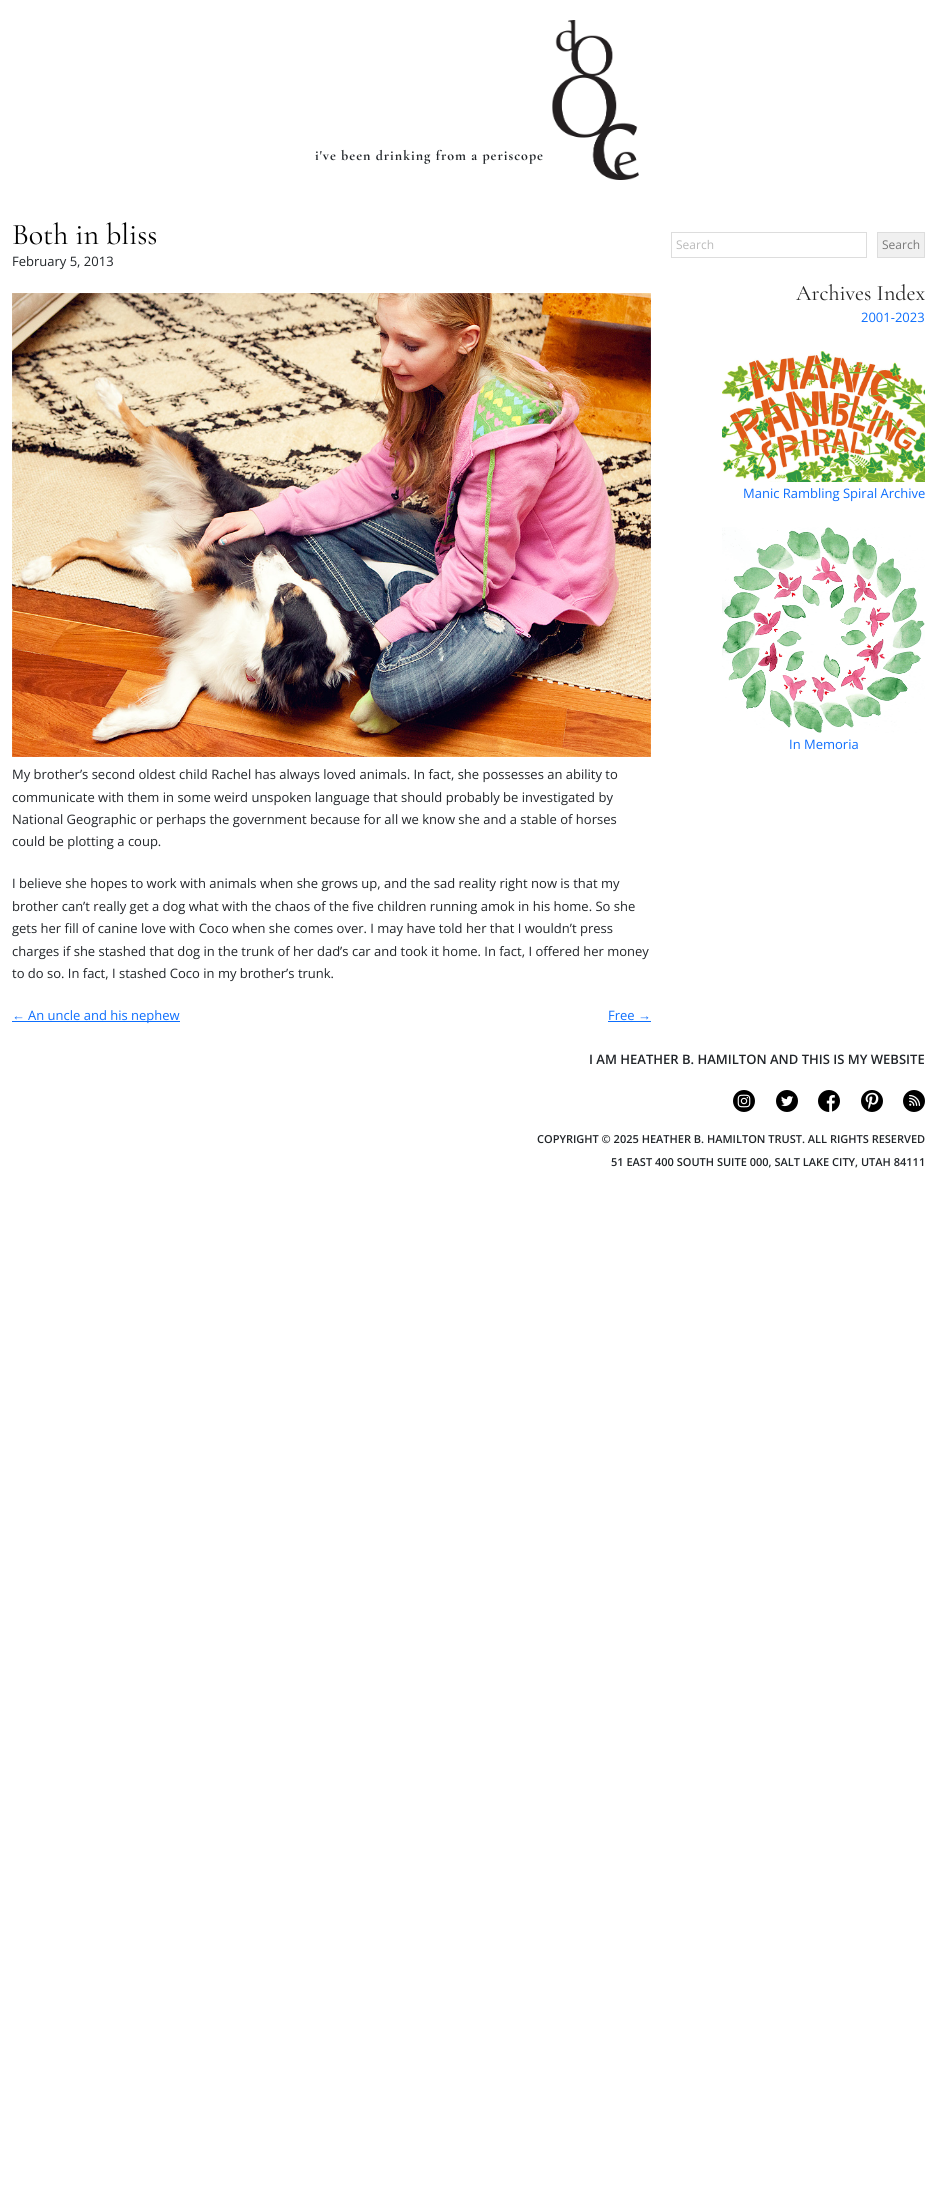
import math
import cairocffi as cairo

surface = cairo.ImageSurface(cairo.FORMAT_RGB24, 937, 2211)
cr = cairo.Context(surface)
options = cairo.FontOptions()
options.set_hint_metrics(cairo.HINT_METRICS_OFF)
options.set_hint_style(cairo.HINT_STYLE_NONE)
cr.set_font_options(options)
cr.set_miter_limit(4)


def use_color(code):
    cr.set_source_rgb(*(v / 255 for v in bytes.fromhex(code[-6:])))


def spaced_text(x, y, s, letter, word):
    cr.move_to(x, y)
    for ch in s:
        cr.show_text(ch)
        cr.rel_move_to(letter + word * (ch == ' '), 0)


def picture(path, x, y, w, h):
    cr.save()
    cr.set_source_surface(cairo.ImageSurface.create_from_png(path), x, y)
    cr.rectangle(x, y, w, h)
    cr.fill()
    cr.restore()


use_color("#ffffff")
cr.paint()
cr.select_font_face("Cormorant Garamond", cairo.FONT_SLANT_NORMAL, cairo.FONT_WEIGHT_BOLD)
cr.set_font_size(14)
use_color("#212529")
spaced_text(315, 160, "i've been drinking from a periscope", 1, 0)
picture("img1.png", 552, 20, 87, 160)
cr.select_font_face("Cormorant Garamond")
cr.set_font_size(30)
use_color("#000000")
cr.move_to(12, 244)
cr.show_text("Both in bliss")
cr.select_font_face("Open Sans")
cr.set_font_size(13)
use_color("#212529")
cr.move_to(12, 266)
cr.show_text("February 5, 2013")
picture("img2.png", 12, 293, 639, 464)
cr.move_to(12, 779)
cr.show_text("My brother’s second oldest child Rachel has always loved animals. In fact, she possesses an ability to")
cr.move_to(12, 802)
cr.show_text("communicate with them in some weird unspoken language that should probably be investigated by")
cr.move_to(12, 824)
cr.show_text("National Geographic or perhaps the government because for all we know she and a stable of horses")
cr.move_to(12, 846)
cr.show_text("could be plotting a coup.")
cr.move_to(12, 888)
cr.show_text("I believe she hopes to work with animals when she grows up, and the sad reality right now is that my")
cr.move_to(12, 911)
cr.show_text("brother can’t really get a dog what with the chaos of the five children running amok in his home. So she")
cr.move_to(12, 933)
cr.show_text("gets her fill of canine love with Coco when she comes over. I may have told her that I wouldn’t press")
cr.move_to(12, 956)
cr.show_text("charges if she stashed that dog in the trunk of her dad’s car and took it home. In fact, I offered her money")
cr.move_to(12, 978)
cr.show_text("to do so. In fact, I stashed Coco in my brother’s trunk.")
cr.select_font_face("Liberation Sans")
use_color("#0d6efd")
cr.move_to(12, 1020)
cr.show_text("←")
cr.rectangle(12, 1021, 168, 1)
cr.fill()
cr.select_font_face("Open Sans")
cr.move_to(28, 1020)
cr.show_text("An uncle and his nephew")
cr.move_to(608, 1020)
cr.show_text("Free")
cr.select_font_face("Liberation Sans")
cr.move_to(638, 1020)
cr.show_text("→")
cr.rectangle(608, 1021, 43, 1)
cr.fill()
cr.rectangle(671.5, 232.5, 195, 25)
use_color("#dddddd")
cr.set_line_width(1)
cr.stroke()
cr.select_font_face("Open Sans")
cr.set_font_size(12)
use_color("#bababa")
cr.move_to(676, 249)
cr.show_text("Search")
use_color("#f0f0f0")
cr.rectangle(877.5, 232.5, 47, 25)
cr.fill_preserve()
use_color("#dddddd")
cr.stroke()
use_color("#777777")
cr.move_to(882, 249)
cr.show_text("Search")
cr.select_font_face("Cormorant Garamond")
cr.set_font_size(22)
use_color("#222222")
cr.move_to(796, 300)
cr.show_text("Archives Index")
cr.select_font_face("Open Sans")
cr.set_font_size(13)
use_color("#0d6efd")
cr.move_to(861, 322)
cr.show_text("2001-2023")
picture("img3.png", 722, 351, 203, 131)
cr.move_to(743, 498)
cr.show_text("Manic Rambling Spiral Archive")
picture("img4.png", 722, 527, 203, 206)
cr.move_to(789, 749)
cr.show_text("In Memoria")
cr.select_font_face("Open Sans SemiBold")
use_color("#212529")
cr.move_to(589, 1064)
cr.show_text("I AM HEATHER B. HAMILTON AND THIS IS MY WEBSITE")
picture("img5.png", 733, 1090, 22, 22)
picture("img6.png", 776, 1090, 22, 22)
picture("img7.png", 818, 1090, 22, 22)
picture("img8.png", 861, 1090, 22, 22)
picture("img9.png", 903, 1090, 22, 22)
cr.set_font_size(11)
cr.move_to(537, 1143)
cr.show_text("COPYRIGHT © 2025 HEATHER B. HAMILTON TRUST. ALL RIGHTS RESERVED")
cr.move_to(611, 1166)
cr.show_text("51 EAST 400 SOUTH SUITE 000, SALT LAKE CITY, UTAH 84111")
surface.write_to_png("result.png")
